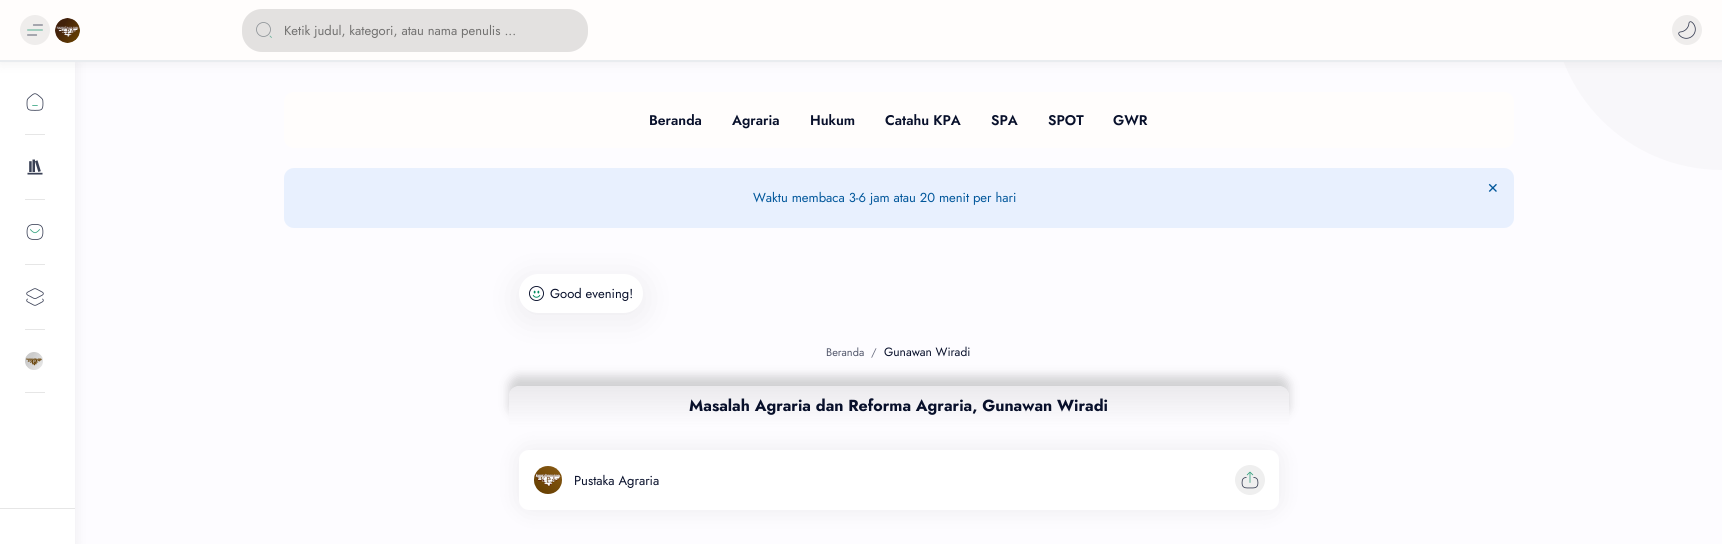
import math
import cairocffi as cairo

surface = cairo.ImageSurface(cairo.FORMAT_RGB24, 1722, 544)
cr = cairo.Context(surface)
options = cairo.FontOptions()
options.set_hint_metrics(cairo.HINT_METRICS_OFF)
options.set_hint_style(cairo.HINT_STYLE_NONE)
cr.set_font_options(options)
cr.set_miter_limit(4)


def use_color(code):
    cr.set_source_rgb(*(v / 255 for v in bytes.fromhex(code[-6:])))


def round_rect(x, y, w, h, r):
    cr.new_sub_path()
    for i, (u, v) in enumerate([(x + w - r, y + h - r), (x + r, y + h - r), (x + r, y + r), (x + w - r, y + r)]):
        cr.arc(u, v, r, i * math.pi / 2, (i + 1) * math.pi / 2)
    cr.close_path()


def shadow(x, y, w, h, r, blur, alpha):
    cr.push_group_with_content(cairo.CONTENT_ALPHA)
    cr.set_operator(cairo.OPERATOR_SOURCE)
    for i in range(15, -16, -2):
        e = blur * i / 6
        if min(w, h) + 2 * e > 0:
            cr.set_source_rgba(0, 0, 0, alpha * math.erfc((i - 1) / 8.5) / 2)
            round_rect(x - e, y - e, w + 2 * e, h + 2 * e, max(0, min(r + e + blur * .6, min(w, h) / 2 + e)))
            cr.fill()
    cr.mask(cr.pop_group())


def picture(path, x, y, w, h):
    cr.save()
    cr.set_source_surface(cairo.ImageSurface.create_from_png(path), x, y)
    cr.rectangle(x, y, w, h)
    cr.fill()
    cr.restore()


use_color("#fdfcff")
cr.paint()
use_color("#f8f7fa")
cr.new_path()
cr.move_to(1552, 0)
cr.line_to(1722, 0)
cr.line_to(1722, 170)
cr.curve_to(1628, 170, 1552, 94, 1552, 0)
cr.close_path()
cr.fill()
use_color("#000000")
shadow(0, 62, 75, 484, 0, 7.5, 0.07)
use_color("#ffffff")
cr.rectangle(0, 62, 75, 482)
cr.fill()
use_color("#000000")
shadow(0, 0, 1722, 62, 0, 7.5, 0.07)
use_color("#fffdfc")
cr.rectangle(0, 0, 1722, 60)
cr.fill()
use_color("#efedec")
cr.arc(35, 30, 15, 0, 2 * math.pi)
cr.fill()
picture("img1.png", 27, 24, 16, 12)
picture("img2.png", 55, 18, 25, 25)
use_color("#e3e1e0")
round_rect(242, 9, 346, 43, 20)
cr.fill()
cr.arc(263.5, 29.5, 7, 0, 2 * math.pi)
use_color("#8c9196")
cr.set_line_width(0.8)
cr.stroke()
cr.new_path()
cr.move_to(271.5, 37.5)
cr.line_to(270, 36)
use_color("#64b198")
cr.set_line_cap(cairo.LINE_CAP_ROUND)
cr.set_line_join(cairo.LINE_JOIN_ROUND)
cr.stroke()
cr.select_font_face("Jost")
cr.set_font_size(13)
use_color("#727170")
cr.move_to(284, 35)
cr.show_text("Ketik judul, kategori, atau nama penulis ...")
use_color("#efedec")
cr.new_path()
cr.arc(1687, 30, 15, 0, 2 * math.pi)
cr.fill()
picture("img3.png", 1678, 21, 18, 18)
use_color("#e9ecef")
cr.rectangle(0, 60, 1722, 2)
cr.fill()
picture("img4.png", 26, 93, 18, 18)
use_color("#e6e6e6")
cr.rectangle(25, 134, 20, 1)
cr.fill()
picture("img5.png", 27, 159, 16, 16)
cr.rectangle(25, 199, 20, 1)
cr.fill()
picture("img6.png", 26, 224, 18, 16)
cr.rectangle(25, 264, 20, 1)
cr.fill()
picture("img7.png", 26, 288, 18, 18)
cr.rectangle(25, 329, 20, 1)
cr.fill()
picture("img8.png", 25, 352, 18, 18)
cr.rectangle(25, 392, 20, 1)
cr.fill()
cr.rectangle(0, 508, 75, 1)
cr.fill()
use_color("#fffdfc")
round_rect(284, 92, 1230, 56, 10)
cr.fill()
cr.select_font_face("Jost SemiBold")
cr.set_font_size(14)
use_color("#08102b")
cr.move_to(649, 125)
cr.show_text("Beranda")
cr.move_to(732, 125)
cr.show_text("Agraria")
cr.move_to(810, 125)
cr.show_text("Hukum")
cr.move_to(885, 125)
cr.show_text("Catahu KPA")
cr.move_to(991, 125)
cr.show_text("SPA")
cr.move_to(1048, 125)
cr.show_text("SPOT")
cr.move_to(1113, 125)
cr.show_text("GWR")
use_color("#e8f0fe")
round_rect(284, 168, 1230, 60, 10)
cr.fill()
cr.select_font_face("DejaVu Sans")
use_color("#01579b")
cr.move_to(1487, 193)
cr.show_text("✕")
cr.select_font_face("Jost")
cr.set_font_size(13)
cr.move_to(753, 202)
cr.show_text("Waktu membaca 3-6 jam atau 20 menit per hari")
use_color("#000000")
shadow(519, 279, 124, 39, 19.5, 17.5, 0.07)
use_color("#ffffff")
round_rect(519, 274, 124, 39, 19.5)
cr.fill()
picture("img9.png", 529, 286, 15, 15)
use_color("#08102b")
cr.move_to(550, 298)
cr.show_text("Good evening!")
cr.set_font_size(11)
use_color("#52576b")
cr.move_to(826, 356)
cr.show_text("Beranda")
use_color("#6a6e80")
cr.move_to(871, 356)
cr.show_text("/")
cr.set_font_size(12)
use_color("#08102b")
cr.move_to(884, 356)
cr.show_text("Gunawan Wiradi")
cr.save()
cr.set_fill_rule(cairo.FILL_RULE_EVEN_ODD)
cr.new_path()
cr.move_to(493, 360)
cr.line_to(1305, 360)
cr.line_to(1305, 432)
cr.line_to(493, 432)
cr.close_path()
cr.move_to(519, 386)
cr.line_to(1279, 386)
cr.curve_to(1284.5, 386, 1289, 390.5, 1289, 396)
cr.line_to(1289, 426)
cr.line_to(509, 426)
cr.line_to(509, 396)
cr.curve_to(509, 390.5, 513.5, 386, 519, 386)
cr.close_path()
cr.clip()
use_color("#505050")
shadow(509, 376, 780, 40, 10, 5, 0.25)
cr.restore()
gradient = cairo.LinearGradient(899, 386, 899, 426)
gradient.add_color_stop_rgba(0, 0.286, 0.282, 0.282, 0.1)
gradient.add_color_stop_rgba(1, 0.286, 0.282, 0.282, 0)
cr.set_source(gradient)
cr.new_path()
cr.move_to(519, 386)
cr.line_to(1279, 386)
cr.curve_to(1284.5, 386, 1289, 390.5, 1289, 396)
cr.line_to(1289, 426)
cr.line_to(509, 426)
cr.line_to(509, 396)
cr.curve_to(509, 390.5, 513.5, 386, 519, 386)
cr.close_path()
cr.fill()
cr.select_font_face("Jost", cairo.FONT_SLANT_NORMAL, cairo.FONT_WEIGHT_BOLD)
cr.set_font_size(16)
use_color("#08102b")
cr.move_to(689, 411)
cr.show_text("Masalah Agraria dan Reforma Agraria, Gunawan Wiradi")
use_color("#000000")
shadow(519, 450, 760, 60, 10, 12.5, 0.07)
use_color("#ffffff")
round_rect(519, 450, 760, 60, 10)
cr.fill()
picture("img10.png", 534, 466, 28, 28)
cr.select_font_face("Jost")
cr.set_font_size(13)
use_color("#08102b")
cr.move_to(574, 485)
cr.show_text("Pustaka Agraria")
use_color("#efefef")
cr.new_path()
cr.arc(1250, 480, 15, 0, 2 * math.pi)
cr.fill()
picture("img11.png", 1241, 471, 18, 18)
surface.write_to_png("result.png")
